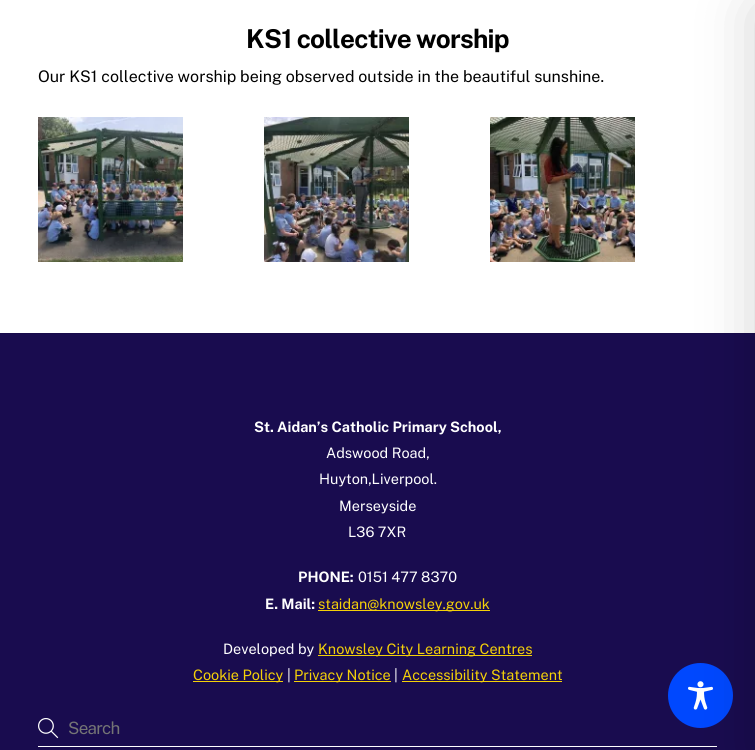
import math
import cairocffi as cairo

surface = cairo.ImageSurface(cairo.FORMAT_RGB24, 755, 750)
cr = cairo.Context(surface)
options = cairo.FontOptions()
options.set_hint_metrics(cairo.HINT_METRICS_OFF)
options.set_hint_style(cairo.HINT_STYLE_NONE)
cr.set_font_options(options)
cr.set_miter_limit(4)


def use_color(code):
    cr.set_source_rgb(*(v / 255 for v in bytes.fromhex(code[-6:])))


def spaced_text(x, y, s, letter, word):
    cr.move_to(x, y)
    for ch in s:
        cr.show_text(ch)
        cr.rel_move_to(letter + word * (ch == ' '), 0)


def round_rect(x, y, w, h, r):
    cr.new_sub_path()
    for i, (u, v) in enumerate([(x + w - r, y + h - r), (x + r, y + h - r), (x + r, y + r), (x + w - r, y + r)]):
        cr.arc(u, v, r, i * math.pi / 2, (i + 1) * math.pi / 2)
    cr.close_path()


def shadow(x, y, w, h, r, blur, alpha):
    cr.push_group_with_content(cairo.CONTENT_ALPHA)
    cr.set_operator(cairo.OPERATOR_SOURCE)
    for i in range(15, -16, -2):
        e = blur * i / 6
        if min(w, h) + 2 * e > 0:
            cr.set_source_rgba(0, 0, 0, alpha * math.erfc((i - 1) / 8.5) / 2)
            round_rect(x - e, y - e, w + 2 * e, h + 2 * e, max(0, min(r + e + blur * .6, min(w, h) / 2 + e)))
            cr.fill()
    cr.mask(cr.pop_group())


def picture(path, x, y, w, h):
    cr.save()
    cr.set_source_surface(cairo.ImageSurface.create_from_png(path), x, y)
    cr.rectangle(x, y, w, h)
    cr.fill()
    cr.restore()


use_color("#ffffff")
cr.paint()
cr.select_font_face("Public Sans", cairo.FONT_SLANT_NORMAL, cairo.FONT_WEIGHT_BOLD)
cr.set_font_size(26)
use_color("#000000")
spaced_text(246, 48, "KS1 collective worship", -0.75, 0)
cr.select_font_face("Public Sans")
cr.set_font_size(16)
cr.move_to(38, 82)
cr.show_text("Our KS1 collective worship being observed outside in the beautiful sunshine.")
picture("img1.png", 38, 117, 145, 145)
picture("img2.png", 264, 117, 145, 145)
picture("img3.png", 490, 117, 145, 145)
use_color("#190c4f")
cr.rectangle(0, 334, 755, 416)
cr.fill()
use_color("#180b4b")
cr.rectangle(0, 333, 755, 1)
cr.fill()
cr.select_font_face("Public Sans", cairo.FONT_SLANT_NORMAL, cairo.FONT_WEIGHT_BOLD)
cr.set_font_size(14.4)
use_color("#ffffff")
cr.move_to(254, 432)
cr.show_text("St. Aidan’s Catholic Primary School,")
cr.select_font_face("Public Sans")
cr.move_to(326, 458)
cr.show_text("Adswood Road,")
cr.move_to(319, 484)
cr.show_text("Huyton,Liverpool.")
cr.move_to(339, 511)
cr.show_text("Merseyside")
cr.move_to(348, 537)
cr.show_text("L36 7XR")
cr.select_font_face("Public Sans", cairo.FONT_SLANT_NORMAL, cairo.FONT_WEIGHT_BOLD)
cr.move_to(298, 582)
cr.show_text("PHONE:")
cr.select_font_face("Public Sans")
cr.move_to(358, 582)
cr.show_text("0151 477 8370")
cr.select_font_face("Public Sans", cairo.FONT_SLANT_NORMAL, cairo.FONT_WEIGHT_BOLD)
cr.move_to(265, 609)
cr.show_text("E. Mail:")
use_color("#f5d108")
cr.rectangle(318, 610, 172, 1)
cr.fill()
cr.select_font_face("Public Sans")
cr.move_to(318, 609)
cr.show_text("staidan@knowsley.gov.uk")
use_color("#ffffff")
cr.move_to(223, 654)
cr.show_text("Developed by")
use_color("#f5d108")
cr.rectangle(318, 655, 214, 1)
cr.fill()
cr.move_to(318, 654)
cr.show_text("Knowsley City Learning Centres")
cr.rectangle(193, 681, 90, 1)
cr.fill()
cr.move_to(193, 680)
cr.show_text("Cookie Policy")
use_color("#ffffff")
cr.move_to(287, 680)
cr.show_text("|")
use_color("#f5d108")
cr.rectangle(294, 681, 97, 1)
cr.fill()
cr.move_to(294, 680)
cr.show_text("Privacy Notice")
use_color("#ffffff")
cr.move_to(394, 680)
cr.show_text("|")
use_color("#f5d108")
cr.rectangle(402, 681, 160, 1)
cr.fill()
cr.move_to(402, 680)
cr.show_text("Accessibility Statement")
use_color("#ffffff")
cr.rectangle(38, 746, 679, 1)
cr.fill()
picture("img4.png", 38, 718, 21, 21)
cr.set_font_size(17)
use_color("#757575")
spaced_text(68, 734, "Search", -0.75, 0)
use_color("#0048fe")
cr.new_path()
cr.arc(700.5, 695.5, 32.5, 0, 2 * math.pi)
cr.fill()
picture("img5.png", 688, 681, 25, 29)
use_color("#000000")
shadow(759, 10, 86, 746, 0, 30, 0.2)
surface.write_to_png("result.png")
